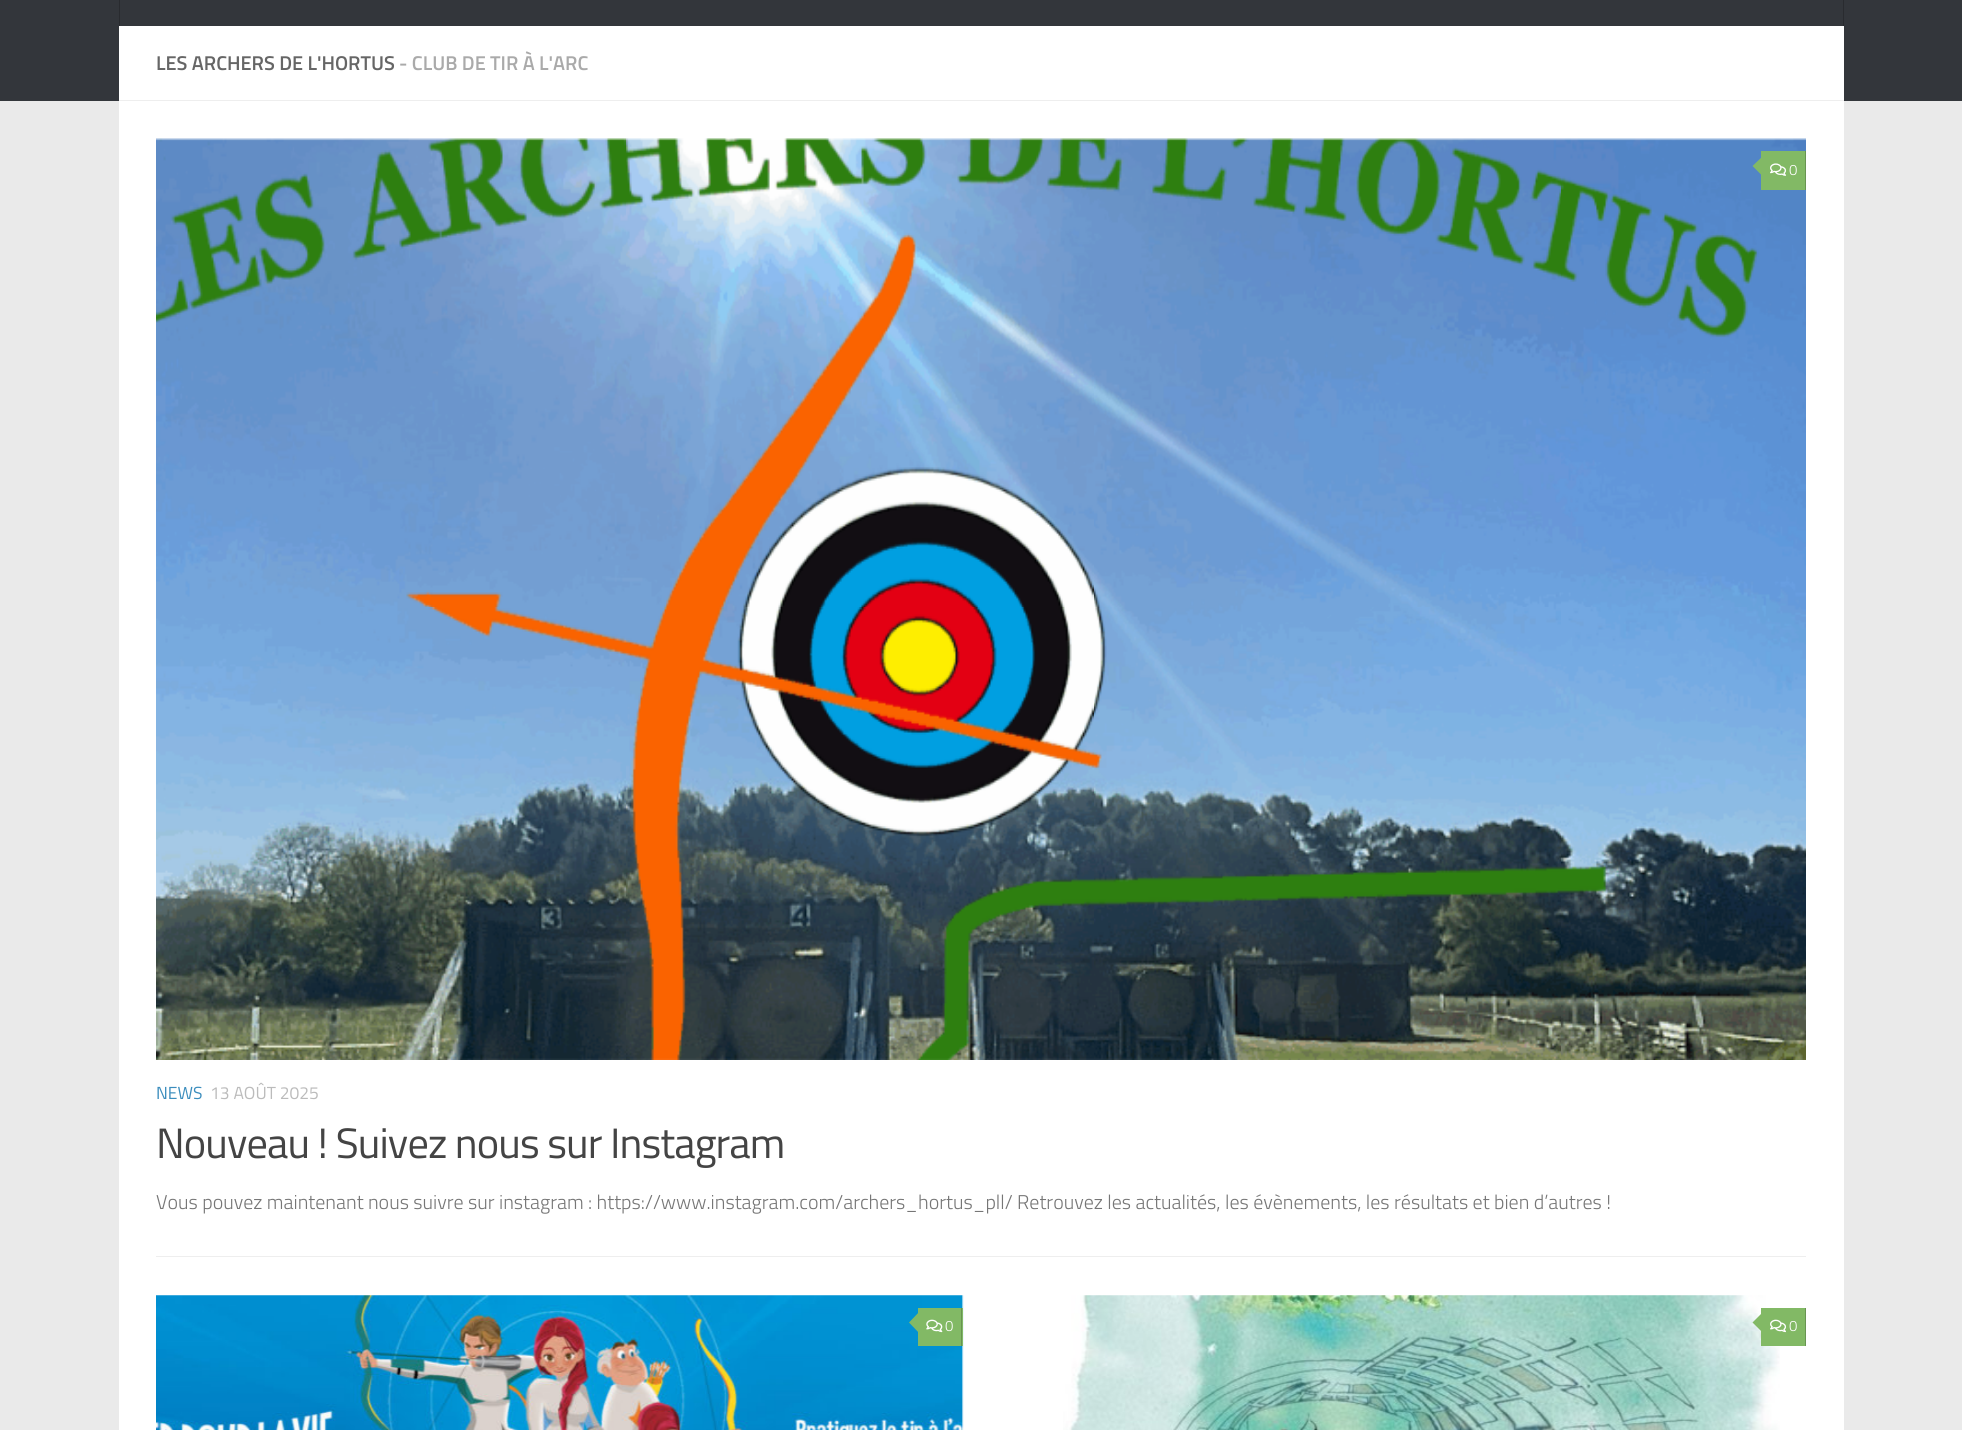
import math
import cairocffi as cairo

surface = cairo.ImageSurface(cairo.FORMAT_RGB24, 1962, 1430)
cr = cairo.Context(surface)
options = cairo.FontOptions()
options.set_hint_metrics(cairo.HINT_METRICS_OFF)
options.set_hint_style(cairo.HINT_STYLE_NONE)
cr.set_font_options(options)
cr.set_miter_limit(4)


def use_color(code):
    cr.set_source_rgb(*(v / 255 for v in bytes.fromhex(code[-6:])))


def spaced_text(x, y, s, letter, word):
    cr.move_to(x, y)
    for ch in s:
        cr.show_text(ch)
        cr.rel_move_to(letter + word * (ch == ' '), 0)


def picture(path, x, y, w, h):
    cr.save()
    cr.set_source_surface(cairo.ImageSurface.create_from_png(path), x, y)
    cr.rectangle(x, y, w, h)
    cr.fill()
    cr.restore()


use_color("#eaeaea")
cr.paint()
use_color("#33363b")
cr.rectangle(0, 0, 1962, 101)
cr.fill()
use_color("#292b2f")
cr.rectangle(1843, 0, 1, 26)
cr.fill()
cr.rectangle(119, 0, 1, 26)
cr.fill()
use_color("#ffffff")
cr.rectangle(119, 26, 1725, 1404)
cr.fill()
use_color("#eeeeee")
cr.rectangle(119, 100, 1725, 1)
cr.fill()
cr.select_font_face("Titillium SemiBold")
cr.set_font_size(20)
use_color("#666666")
cr.move_to(156, 70)
cr.show_text("LES ARCHERS DE L'HORTUS")
use_color("#aaaaaa")
cr.move_to(399, 70)
cr.show_text("- CLUB DE TIR À L'ARC")
use_color("#eeeeee")
cr.rectangle(156, 1256, 1650, 1)
cr.fill()
picture("img1.png", 156, 138, 1650, 922)
use_color("#82b965")
cr.rectangle(1761, 151, 44, 39)
cr.fill()
use_color("#689451")
cr.rectangle(1805, 151, 1, 39)
cr.fill()
use_color("#82b965")
cr.new_path()
cr.move_to(1764, 155)
cr.line_to(1764, 177.5)
cr.line_to(1752.5, 166)
cr.close_path()
cr.fill()
picture("img2.png", 1770, 163, 17, 13)
cr.select_font_face("Titillium Light")
cr.set_font_size(15)
use_color("#ffffff")
cr.move_to(1789, 175)
cr.show_text("0")
cr.select_font_face("Titillium")
cr.set_font_size(17.5)
use_color("#3b8dbd")
cr.move_to(156, 1099)
cr.show_text("NEWS")
use_color("#bbbbbb")
cr.move_to(210, 1099)
cr.show_text("13 AOÛT 2025")
cr.set_font_size(42.5)
use_color("#444444")
spaced_text(156, 1158, "Nouveau ! Suivez nous sur Instagram", -0.9, 0)
cr.select_font_face("Titillium Light")
cr.set_font_size(20)
use_color("#767676")
cr.move_to(156, 1209)
cr.show_text("Vous pouvez maintenant nous suivre sur instagram : https://www.instagram.com/archers_hortus_pll/ Retrouvez les actualités, les évènements, les résultats et bien d’autres !")
picture("img3.png", 156, 1295, 808, 135)
use_color("#82b965")
cr.rectangle(918, 1308, 45, 38)
cr.fill()
use_color("#689451")
cr.rectangle(961, 1308, 1, 38)
cr.fill()
use_color("#82b965")
cr.new_path()
cr.move_to(920, 1311)
cr.line_to(920, 1334)
cr.line_to(909, 1322.5)
cr.close_path()
cr.fill()
picture("img4.png", 926, 1319, 17, 14)
cr.set_font_size(15)
use_color("#ffffff")
cr.move_to(945, 1331)
cr.show_text("0")
picture("img5.png", 1063, 1295, 717, 135)
use_color("#82b965")
cr.rectangle(1761, 1308, 44, 38)
cr.fill()
use_color("#689451")
cr.rectangle(1805, 1308, 1, 38)
cr.fill()
use_color("#82b965")
cr.new_path()
cr.move_to(1764, 1311)
cr.line_to(1764, 1334)
cr.line_to(1752.5, 1322.5)
cr.close_path()
cr.fill()
picture("img6.png", 1770, 1319, 16, 14)
use_color("#ffffff")
cr.move_to(1789, 1331)
cr.show_text("0")
surface.write_to_png("result.png")
